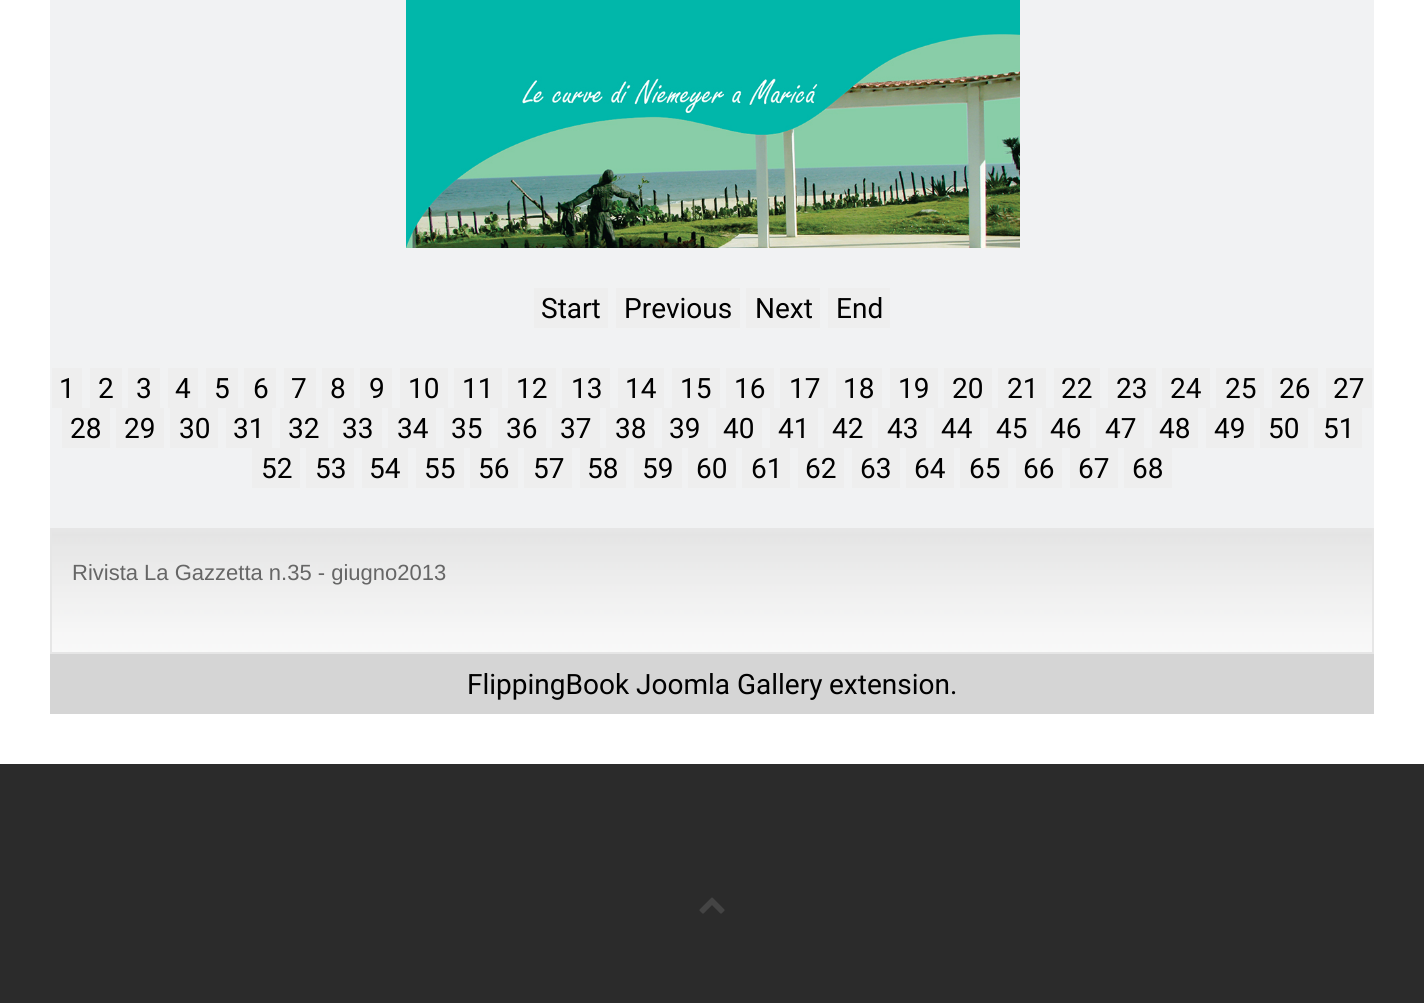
import math
import cairocffi as cairo

surface = cairo.ImageSurface(cairo.FORMAT_RGB24, 1424, 1003)
cr = cairo.Context(surface)
options = cairo.FontOptions()
options.set_hint_metrics(cairo.HINT_METRICS_OFF)
options.set_hint_style(cairo.HINT_STYLE_NONE)
cr.set_font_options(options)
cr.set_miter_limit(4)


def use_color(code):
    cr.set_source_rgb(*(v / 255 for v in bytes.fromhex(code[-6:])))


def picture(path, x, y, w, h):
    cr.save()
    cr.set_source_surface(cairo.ImageSurface.create_from_png(path), x, y)
    cr.rectangle(x, y, w, h)
    cr.fill()
    cr.restore()


use_color("#ffffff")
cr.paint()
use_color("#f1f2f3")
cr.rectangle(50, 0, 1324, 528)
cr.fill()
picture("img1.png", 406, 0, 614, 248)
use_color("#eeeeee")
cr.rectangle(534, 288, 74, 40)
cr.fill()
cr.select_font_face("Roboto")
cr.set_font_size(28)
use_color("#000000")
cr.move_to(541, 318)
cr.show_text("Start")
use_color("#eeeeee")
cr.rectangle(616, 288, 124, 40)
cr.fill()
use_color("#000000")
cr.move_to(624, 318)
cr.show_text("Previous")
use_color("#eeeeee")
cr.rectangle(746, 288, 74, 40)
cr.fill()
use_color("#000000")
cr.move_to(755, 318)
cr.show_text("Next")
use_color("#eeeeee")
cr.rectangle(828, 288, 62, 40)
cr.fill()
use_color("#000000")
cr.move_to(836, 318)
cr.show_text("End")
use_color("#eeeeee")
cr.rectangle(52, 368, 30, 40)
cr.fill()
use_color("#000000")
cr.move_to(59, 398)
cr.show_text("1")
use_color("#eeeeee")
cr.rectangle(90, 368, 32, 40)
cr.fill()
use_color("#000000")
cr.move_to(98, 398)
cr.show_text("2")
use_color("#eeeeee")
cr.rectangle(128, 368, 32, 40)
cr.fill()
use_color("#000000")
cr.move_to(136, 398)
cr.show_text("3")
use_color("#eeeeee")
cr.rectangle(168, 368, 30, 40)
cr.fill()
use_color("#000000")
cr.move_to(175, 398)
cr.show_text("4")
use_color("#eeeeee")
cr.rectangle(206, 368, 32, 40)
cr.fill()
use_color("#000000")
cr.move_to(214, 398)
cr.show_text("5")
use_color("#eeeeee")
cr.rectangle(244, 368, 32, 40)
cr.fill()
use_color("#000000")
cr.move_to(253, 398)
cr.show_text("6")
use_color("#eeeeee")
cr.rectangle(284, 368, 32, 40)
cr.fill()
use_color("#000000")
cr.move_to(291, 398)
cr.show_text("7")
use_color("#eeeeee")
cr.rectangle(322, 368, 32, 40)
cr.fill()
use_color("#000000")
cr.move_to(330, 398)
cr.show_text("8")
use_color("#eeeeee")
cr.rectangle(360, 368, 32, 40)
cr.fill()
use_color("#000000")
cr.move_to(369, 398)
cr.show_text("9")
use_color("#eeeeee")
cr.rectangle(400, 368, 48, 40)
cr.fill()
use_color("#000000")
cr.move_to(408, 398)
cr.show_text("10")
use_color("#eeeeee")
cr.rectangle(454, 368, 48, 40)
cr.fill()
use_color("#000000")
cr.move_to(462, 398)
cr.show_text("11")
use_color("#eeeeee")
cr.rectangle(508, 368, 48, 40)
cr.fill()
use_color("#000000")
cr.move_to(516, 398)
cr.show_text("12")
use_color("#eeeeee")
cr.rectangle(562, 368, 48, 40)
cr.fill()
use_color("#000000")
cr.move_to(571, 398)
cr.show_text("13")
use_color("#eeeeee")
cr.rectangle(618, 368, 46, 40)
cr.fill()
use_color("#000000")
cr.move_to(625, 398)
cr.show_text("14")
use_color("#eeeeee")
cr.rectangle(672, 368, 48, 40)
cr.fill()
use_color("#000000")
cr.move_to(680, 398)
cr.show_text("15")
use_color("#eeeeee")
cr.rectangle(726, 368, 48, 40)
cr.fill()
use_color("#000000")
cr.move_to(734, 398)
cr.show_text("16")
use_color("#eeeeee")
cr.rectangle(780, 368, 48, 40)
cr.fill()
use_color("#000000")
cr.move_to(789, 398)
cr.show_text("17")
use_color("#eeeeee")
cr.rectangle(836, 368, 46, 40)
cr.fill()
use_color("#000000")
cr.move_to(843, 398)
cr.show_text("18")
use_color("#eeeeee")
cr.rectangle(890, 368, 48, 40)
cr.fill()
use_color("#000000")
cr.move_to(898, 398)
cr.show_text("19")
use_color("#eeeeee")
cr.rectangle(944, 368, 48, 40)
cr.fill()
use_color("#000000")
cr.move_to(952, 398)
cr.show_text("20")
use_color("#eeeeee")
cr.rectangle(998, 368, 48, 40)
cr.fill()
use_color("#000000")
cr.move_to(1007, 398)
cr.show_text("21")
use_color("#eeeeee")
cr.rectangle(1054, 368, 46, 40)
cr.fill()
use_color("#000000")
cr.move_to(1061, 398)
cr.show_text("22")
use_color("#eeeeee")
cr.rectangle(1108, 368, 48, 40)
cr.fill()
use_color("#000000")
cr.move_to(1116, 398)
cr.show_text("23")
use_color("#eeeeee")
cr.rectangle(1162, 368, 48, 40)
cr.fill()
use_color("#000000")
cr.move_to(1170, 398)
cr.show_text("24")
use_color("#eeeeee")
cr.rectangle(1216, 368, 48, 40)
cr.fill()
use_color("#000000")
cr.move_to(1225, 398)
cr.show_text("25")
use_color("#eeeeee")
cr.rectangle(1272, 368, 46, 40)
cr.fill()
use_color("#000000")
cr.move_to(1279, 398)
cr.show_text("26")
use_color("#eeeeee")
cr.rectangle(1326, 368, 46, 40)
cr.fill()
use_color("#000000")
cr.move_to(1333, 398)
cr.show_text("27")
use_color("#eeeeee")
cr.rectangle(62, 408, 48, 40)
cr.fill()
use_color("#000000")
cr.move_to(70, 438)
cr.show_text("28")
use_color("#eeeeee")
cr.rectangle(116, 408, 48, 40)
cr.fill()
use_color("#000000")
cr.move_to(124, 438)
cr.show_text("29")
use_color("#eeeeee")
cr.rectangle(170, 408, 48, 40)
cr.fill()
use_color("#000000")
cr.move_to(179, 438)
cr.show_text("30")
use_color("#eeeeee")
cr.rectangle(226, 408, 46, 40)
cr.fill()
use_color("#000000")
cr.move_to(233, 438)
cr.show_text("31")
use_color("#eeeeee")
cr.rectangle(280, 408, 48, 40)
cr.fill()
use_color("#000000")
cr.move_to(288, 438)
cr.show_text("32")
use_color("#eeeeee")
cr.rectangle(334, 408, 48, 40)
cr.fill()
use_color("#000000")
cr.move_to(342, 438)
cr.show_text("33")
use_color("#eeeeee")
cr.rectangle(388, 408, 48, 40)
cr.fill()
use_color("#000000")
cr.move_to(397, 438)
cr.show_text("34")
use_color("#eeeeee")
cr.rectangle(444, 408, 46, 40)
cr.fill()
use_color("#000000")
cr.move_to(451, 438)
cr.show_text("35")
use_color("#eeeeee")
cr.rectangle(498, 408, 48, 40)
cr.fill()
use_color("#000000")
cr.move_to(506, 438)
cr.show_text("36")
use_color("#eeeeee")
cr.rectangle(552, 408, 48, 40)
cr.fill()
use_color("#000000")
cr.move_to(560, 438)
cr.show_text("37")
use_color("#eeeeee")
cr.rectangle(606, 408, 48, 40)
cr.fill()
use_color("#000000")
cr.move_to(615, 438)
cr.show_text("38")
use_color("#eeeeee")
cr.rectangle(662, 408, 46, 40)
cr.fill()
use_color("#000000")
cr.move_to(669, 438)
cr.show_text("39")
use_color("#eeeeee")
cr.rectangle(716, 408, 46, 40)
cr.fill()
use_color("#000000")
cr.move_to(723, 438)
cr.show_text("40")
use_color("#eeeeee")
cr.rectangle(770, 408, 48, 40)
cr.fill()
use_color("#000000")
cr.move_to(778, 438)
cr.show_text("41")
use_color("#eeeeee")
cr.rectangle(824, 408, 48, 40)
cr.fill()
use_color("#000000")
cr.move_to(832, 438)
cr.show_text("42")
use_color("#eeeeee")
cr.rectangle(878, 408, 48, 40)
cr.fill()
use_color("#000000")
cr.move_to(887, 438)
cr.show_text("43")
use_color("#eeeeee")
cr.rectangle(934, 408, 46, 40)
cr.fill()
use_color("#000000")
cr.move_to(941, 438)
cr.show_text("44")
use_color("#eeeeee")
cr.rectangle(988, 408, 48, 40)
cr.fill()
use_color("#000000")
cr.move_to(996, 438)
cr.show_text("45")
use_color("#eeeeee")
cr.rectangle(1042, 408, 48, 40)
cr.fill()
use_color("#000000")
cr.move_to(1050, 438)
cr.show_text("46")
use_color("#eeeeee")
cr.rectangle(1096, 408, 48, 40)
cr.fill()
use_color("#000000")
cr.move_to(1105, 438)
cr.show_text("47")
use_color("#eeeeee")
cr.rectangle(1152, 408, 46, 40)
cr.fill()
use_color("#000000")
cr.move_to(1159, 438)
cr.show_text("48")
use_color("#eeeeee")
cr.rectangle(1206, 408, 48, 40)
cr.fill()
use_color("#000000")
cr.move_to(1214, 438)
cr.show_text("49")
use_color("#eeeeee")
cr.rectangle(1260, 408, 48, 40)
cr.fill()
use_color("#000000")
cr.move_to(1268, 438)
cr.show_text("50")
use_color("#eeeeee")
cr.rectangle(1314, 408, 48, 40)
cr.fill()
use_color("#000000")
cr.move_to(1323, 438)
cr.show_text("51")
use_color("#eeeeee")
cr.rectangle(252, 448, 48, 40)
cr.fill()
use_color("#000000")
cr.move_to(261, 478)
cr.show_text("52")
use_color("#eeeeee")
cr.rectangle(306, 448, 48, 40)
cr.fill()
use_color("#000000")
cr.move_to(315, 478)
cr.show_text("53")
use_color("#eeeeee")
cr.rectangle(362, 448, 46, 40)
cr.fill()
use_color("#000000")
cr.move_to(369, 478)
cr.show_text("54")
use_color("#eeeeee")
cr.rectangle(416, 448, 48, 40)
cr.fill()
use_color("#000000")
cr.move_to(424, 478)
cr.show_text("55")
use_color("#eeeeee")
cr.rectangle(470, 448, 48, 40)
cr.fill()
use_color("#000000")
cr.move_to(478, 478)
cr.show_text("56")
use_color("#eeeeee")
cr.rectangle(524, 448, 48, 40)
cr.fill()
use_color("#000000")
cr.move_to(533, 478)
cr.show_text("57")
use_color("#eeeeee")
cr.rectangle(580, 448, 46, 40)
cr.fill()
use_color("#000000")
cr.move_to(587, 478)
cr.show_text("58")
use_color("#eeeeee")
cr.rectangle(634, 448, 48, 40)
cr.fill()
use_color("#000000")
cr.move_to(642, 478)
cr.show_text("59")
use_color("#eeeeee")
cr.rectangle(688, 448, 48, 40)
cr.fill()
use_color("#000000")
cr.move_to(696, 478)
cr.show_text("60")
use_color("#eeeeee")
cr.rectangle(742, 448, 48, 40)
cr.fill()
use_color("#000000")
cr.move_to(751, 478)
cr.show_text("61")
use_color("#eeeeee")
cr.rectangle(798, 448, 46, 40)
cr.fill()
use_color("#000000")
cr.move_to(805, 478)
cr.show_text("62")
use_color("#eeeeee")
cr.rectangle(852, 448, 48, 40)
cr.fill()
use_color("#000000")
cr.move_to(860, 478)
cr.show_text("63")
use_color("#eeeeee")
cr.rectangle(906, 448, 48, 40)
cr.fill()
use_color("#000000")
cr.move_to(914, 478)
cr.show_text("64")
use_color("#eeeeee")
cr.rectangle(960, 448, 48, 40)
cr.fill()
use_color("#000000")
cr.move_to(969, 478)
cr.show_text("65")
use_color("#eeeeee")
cr.rectangle(1016, 448, 46, 40)
cr.fill()
use_color("#000000")
cr.move_to(1023, 478)
cr.show_text("66")
use_color("#eeeeee")
cr.rectangle(1070, 448, 48, 40)
cr.fill()
use_color("#000000")
cr.move_to(1078, 478)
cr.show_text("67")
use_color("#eeeeee")
cr.rectangle(1124, 448, 48, 40)
cr.fill()
use_color("#000000")
cr.move_to(1132, 478)
cr.show_text("68")
picture("img2.png", 52, 530, 1320, 122)
cr.rectangle(51, 529, 1322, 124)
use_color("#e6e6e6")
cr.stroke()
cr.select_font_face("Liberation Sans")
cr.set_font_size(22)
use_color("#666666")
cr.move_to(72, 580)
cr.show_text("Rivista La Gazzetta n.35 - giugno2013")
use_color("#d5d5d5")
cr.rectangle(50, 654, 1324, 60)
cr.fill()
cr.select_font_face("Roboto")
cr.set_font_size(28)
use_color("#000000")
cr.move_to(467, 694)
cr.show_text("FlippingBook")
cr.move_to(636, 694)
cr.show_text("Joomla Gallery")
cr.move_to(829, 694)
cr.show_text("extension.")
use_color("#2b2b2b")
cr.rectangle(0, 764, 1424, 239)
cr.fill()
picture("img3.png", 699, 897, 26, 17)
surface.write_to_png("result.png")
